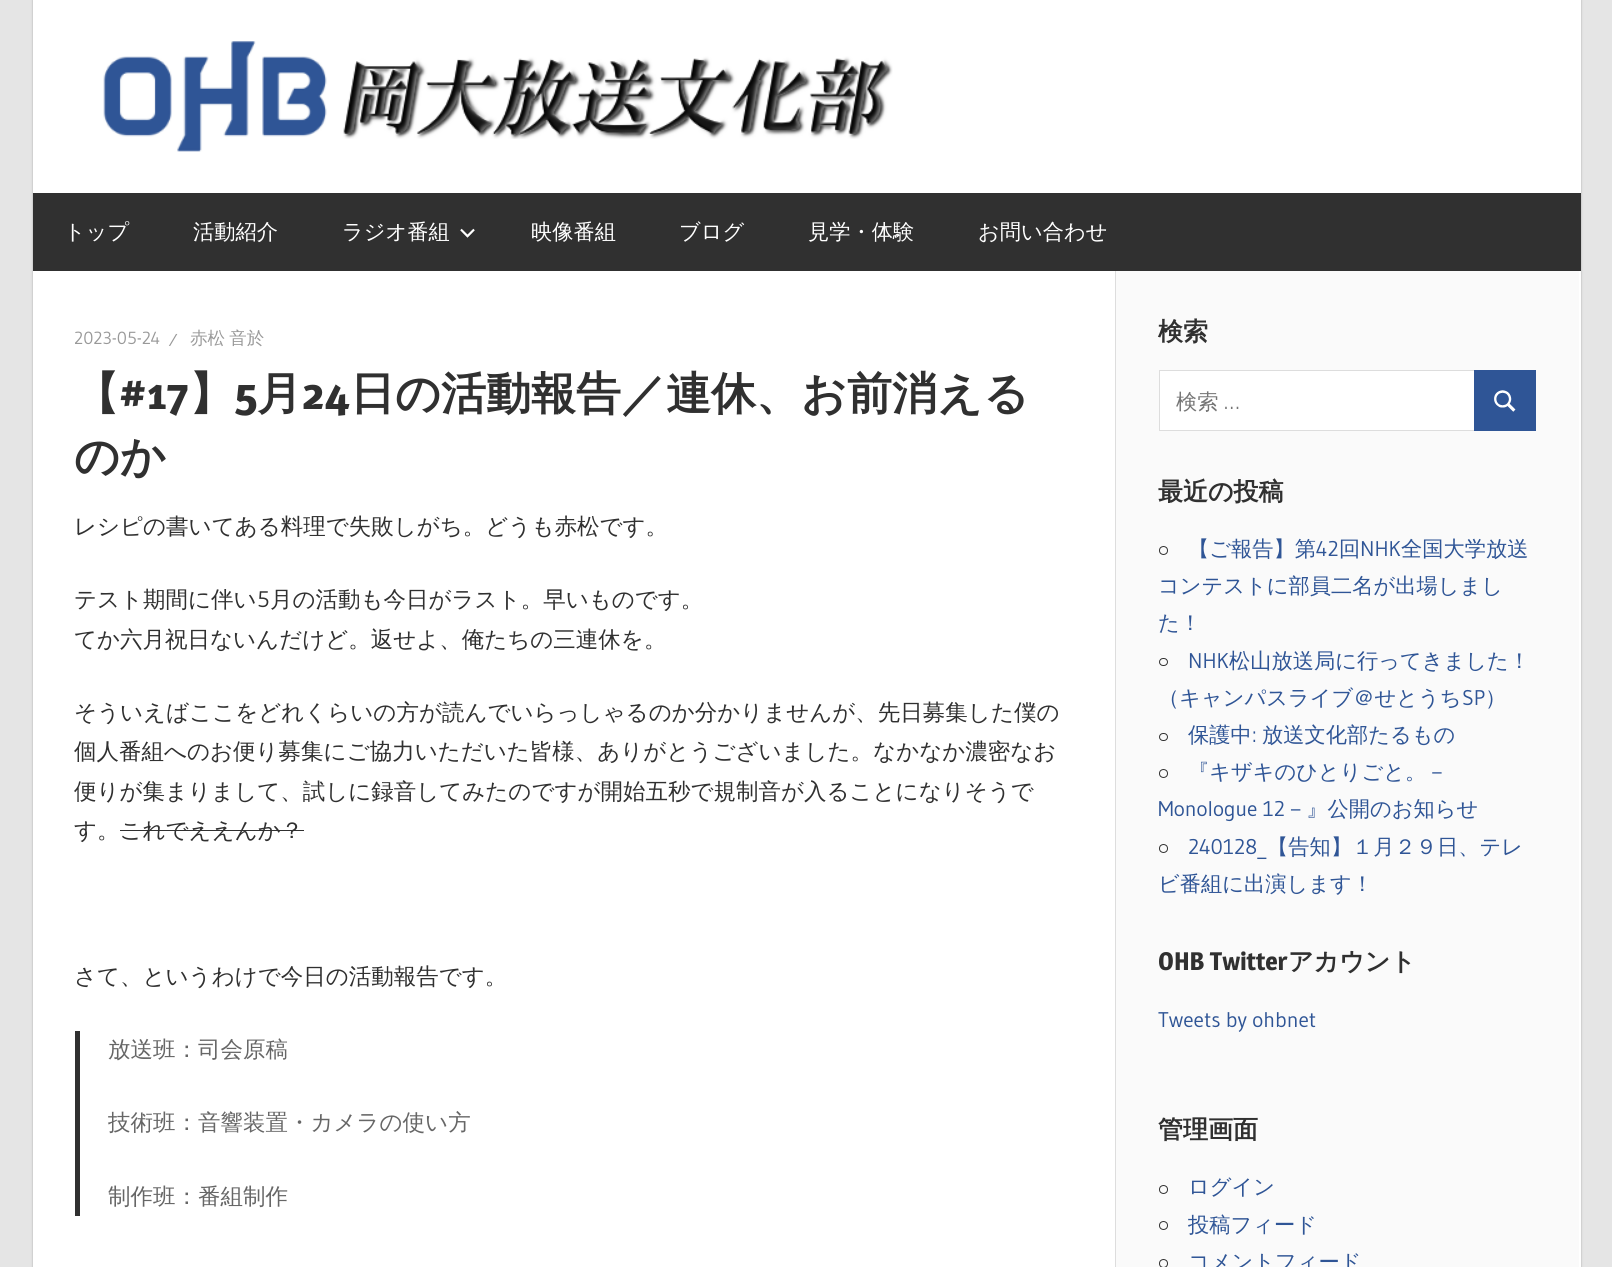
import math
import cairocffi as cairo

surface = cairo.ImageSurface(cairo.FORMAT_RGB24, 1612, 1267)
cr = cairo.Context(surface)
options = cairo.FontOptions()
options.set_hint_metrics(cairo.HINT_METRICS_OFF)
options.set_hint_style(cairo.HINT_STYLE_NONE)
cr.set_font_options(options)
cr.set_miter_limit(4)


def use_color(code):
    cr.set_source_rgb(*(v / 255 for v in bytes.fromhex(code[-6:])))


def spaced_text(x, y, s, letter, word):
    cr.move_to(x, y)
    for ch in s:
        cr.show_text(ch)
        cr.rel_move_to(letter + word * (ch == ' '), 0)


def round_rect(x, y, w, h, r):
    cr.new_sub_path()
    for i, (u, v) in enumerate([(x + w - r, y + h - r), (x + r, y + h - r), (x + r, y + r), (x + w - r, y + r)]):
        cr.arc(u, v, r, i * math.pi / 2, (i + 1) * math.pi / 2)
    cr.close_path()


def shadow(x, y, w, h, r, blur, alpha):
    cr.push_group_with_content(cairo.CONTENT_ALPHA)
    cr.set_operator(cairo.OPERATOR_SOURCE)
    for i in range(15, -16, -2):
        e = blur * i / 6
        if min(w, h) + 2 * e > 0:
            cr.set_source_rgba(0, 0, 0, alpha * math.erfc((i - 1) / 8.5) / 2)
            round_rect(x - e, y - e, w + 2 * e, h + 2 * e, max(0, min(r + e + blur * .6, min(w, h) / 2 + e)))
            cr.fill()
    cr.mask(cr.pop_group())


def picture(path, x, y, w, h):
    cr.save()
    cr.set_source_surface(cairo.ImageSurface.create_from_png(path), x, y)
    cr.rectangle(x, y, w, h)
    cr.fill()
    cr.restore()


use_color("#e5e5e5")
cr.paint()
use_color("#aaaaaa")
shadow(33, 0, 1548, 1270, 0, 1, 1)
use_color("#ffffff")
cr.rectangle(33, 0, 1548, 1267)
cr.fill()
picture("img1.png", 103, 41, 790, 111)
use_color("#303030")
cr.rectangle(33, 193, 1548, 78)
cr.fill()
cr.select_font_face("WenQuanYi Zen Hei Medium")
cr.set_font_size(21.25)
use_color("#ffffff")
cr.move_to(64, 239)
cr.show_text("トップ")
cr.move_to(193, 239)
cr.show_text("活動紹介")
cr.move_to(342, 239)
cr.show_text("ラジオ番組")
picture("img2.png", 460, 228, 15, 10)
cr.move_to(531, 239)
cr.show_text("映像番組")
cr.move_to(679, 239)
cr.show_text("ブログ")
cr.move_to(808, 239)
cr.show_text("見学・体験")
cr.move_to(978, 239)
cr.show_text("お問い合わせ")
cr.select_font_face("Gudea")
cr.set_font_size(17.5)
use_color("#999999")
cr.move_to(74, 344)
cr.show_text("2023-05-24")
cr.move_to(169, 346)
cr.show_text("⁄")
cr.select_font_face("WenQuanYi Zen Hei Medium")
spaced_text(190, 344, "赤松 音於", 0, -1)
cr.select_font_face("WenQuanYi Zen Hei", cairo.FONT_SLANT_NORMAL, cairo.FONT_WEIGHT_BOLD)
cr.set_font_size(45)
use_color("#303030")
cr.move_to(74, 409)
cr.show_text("【")
cr.select_font_face("Magra", cairo.FONT_SLANT_NORMAL, cairo.FONT_WEIGHT_BOLD)
cr.move_to(119, 409)
cr.show_text("#17")
cr.select_font_face("WenQuanYi Zen Hei", cairo.FONT_SLANT_NORMAL, cairo.FONT_WEIGHT_BOLD)
cr.move_to(189, 409)
cr.show_text("】")
cr.select_font_face("Magra", cairo.FONT_SLANT_NORMAL, cairo.FONT_WEIGHT_BOLD)
cr.move_to(234, 409)
cr.show_text("5")
cr.select_font_face("WenQuanYi Zen Hei", cairo.FONT_SLANT_NORMAL, cairo.FONT_WEIGHT_BOLD)
cr.move_to(257, 409)
cr.show_text("月")
cr.select_font_face("Magra", cairo.FONT_SLANT_NORMAL, cairo.FONT_WEIGHT_BOLD)
cr.move_to(302, 409)
cr.show_text("24")
cr.select_font_face("WenQuanYi Zen Hei", cairo.FONT_SLANT_NORMAL, cairo.FONT_WEIGHT_BOLD)
cr.move_to(350, 409)
cr.show_text("日の活動報告／連休、お前消える")
cr.move_to(74, 472)
cr.show_text("のか")
cr.select_font_face("WenQuanYi Zen Hei Medium")
cr.set_font_size(22.5)
cr.move_to(74, 534)
cr.show_text("レシピの書いてある料理で失敗しがち。どうも赤松です。")
cr.move_to(74, 607)
cr.show_text("テスト期間に伴い")
cr.select_font_face("Gudea")
cr.move_to(257, 607)
cr.show_text("5")
cr.select_font_face("WenQuanYi Zen Hei Medium")
cr.move_to(270, 607)
cr.show_text("月の活動も今日がラスト。早いものです。")
cr.move_to(74, 647)
cr.show_text("てか六月祝日ないんだけど。返せよ、俺たちの三連休を。")
cr.move_to(74, 720)
cr.show_text("そういえばここをどれくらいの方が読んでいらっしゃるのか分かりませんが、先日募集した僕の")
cr.move_to(74, 759)
cr.show_text("個人番組へのお便り募集にご協力いただいた皆様、ありがとうございました。なかなか濃密なお")
cr.move_to(74, 799)
cr.show_text("便りが集まりまして、試しに録音してみたのですが開始五秒で規制音が入ることになりそうで")
cr.move_to(74, 838)
cr.show_text("す。これでええんか？")
cr.rectangle(120, 830, 184, 1)
cr.fill()
cr.move_to(74, 984)
cr.show_text("さて、というわけで今日の活動報告です。")
cr.rectangle(75, 1031, 5, 185)
cr.fill()
use_color("#666666")
cr.move_to(108, 1057)
cr.show_text("放送班：司会原稿")
cr.move_to(108, 1130)
cr.show_text("技術班：音響装置・カメラの使い方")
cr.move_to(108, 1204)
cr.show_text("制作班：番組制作")
use_color("#fafafa")
cr.rectangle(1116, 271, 463, 996)
cr.fill()
use_color("#dddddd")
cr.rectangle(1115, 271, 1, 996)
cr.fill()
cr.select_font_face("WenQuanYi Zen Hei", cairo.FONT_SLANT_NORMAL, cairo.FONT_WEIGHT_BOLD)
cr.set_font_size(25)
use_color("#303030")
cr.move_to(1158, 340)
cr.show_text("検索")
use_color("#ffffff")
cr.rectangle(1159.5, 370.5, 315, 60)
cr.fill_preserve()
use_color("#dddddd")
cr.set_line_width(1)
cr.stroke()
cr.select_font_face("WenQuanYi Zen Hei Medium")
cr.set_font_size(21.25)
use_color("#757575")
cr.move_to(1176, 409)
cr.show_text("検索")
cr.select_font_face("Gudea")
cr.move_to(1224, 409)
cr.show_text("…")
use_color("#2f5596")
cr.rectangle(1474, 370, 62, 61)
cr.fill()
picture("img3.png", 1494, 390, 22, 22)
cr.select_font_face("WenQuanYi Zen Hei", cairo.FONT_SLANT_NORMAL, cairo.FONT_WEIGHT_BOLD)
cr.set_font_size(25)
use_color("#303030")
cr.move_to(1158, 500)
cr.show_text("最近の投稿")
cr.new_path()
cr.arc(1163.5, 550.5, 4, 0, 2 * math.pi)
cr.stroke()
cr.select_font_face("WenQuanYi Zen Hei Medium")
cr.set_font_size(21.25)
use_color("#2f5596")
cr.move_to(1188, 556)
cr.show_text("【ご報告】第")
cr.select_font_face("Gudea")
cr.move_to(1316, 556)
cr.show_text("42")
cr.select_font_face("WenQuanYi Zen Hei Medium")
cr.move_to(1339, 556)
cr.show_text("回")
cr.select_font_face("Gudea")
cr.move_to(1360, 556)
cr.show_text("NHK")
cr.select_font_face("WenQuanYi Zen Hei Medium")
cr.move_to(1401, 556)
cr.show_text("全国大学放送")
cr.move_to(1158, 593)
cr.show_text("コンテストに部員二名が出場しまし")
cr.move_to(1158, 630)
cr.show_text("た！")
round_rect(1159.5, 658.5, 8, 7, 3.5)
use_color("#303030")
cr.stroke()
cr.select_font_face("Gudea")
use_color("#2f5596")
cr.move_to(1188, 668)
cr.show_text("NHK")
cr.select_font_face("WenQuanYi Zen Hei Medium")
cr.move_to(1229, 668)
cr.show_text("松山放送局に行ってきました！")
cr.move_to(1158, 705)
cr.show_text("（キャンパスライブ＠せとうち")
cr.select_font_face("Gudea")
cr.move_to(1462, 705)
cr.show_text("SP")
cr.select_font_face("WenQuanYi Zen Hei Medium")
cr.move_to(1485, 705)
cr.show_text("）")
round_rect(1159.5, 733.5, 8, 7, 3.5)
use_color("#303030")
cr.stroke()
use_color("#2f5596")
cr.move_to(1188, 742)
cr.show_text("保護中")
cr.select_font_face("Gudea")
cr.move_to(1252, 742)
cr.show_text(":")
cr.select_font_face("WenQuanYi Zen Hei Medium")
cr.move_to(1262, 742)
cr.show_text("放送文化部たるもの")
cr.new_path()
cr.arc(1163.5, 773.5, 4, 0, 2 * math.pi)
use_color("#303030")
cr.stroke()
use_color("#2f5596")
cr.move_to(1188, 779)
cr.show_text("『キザキのひとりごと。－")
cr.select_font_face("Gudea")
cr.move_to(1158, 816)
cr.show_text("Monologue 12")
cr.select_font_face("WenQuanYi Zen Hei Medium")
cr.move_to(1285, 816)
cr.show_text("－』公開のお知らせ")
cr.new_path()
cr.arc(1163.5, 848.5, 4, 0, 2 * math.pi)
use_color("#303030")
cr.stroke()
cr.select_font_face("Gudea")
use_color("#2f5596")
cr.move_to(1188, 854)
cr.show_text("240128_")
cr.select_font_face("WenQuanYi Zen Hei Medium")
cr.move_to(1267, 854)
cr.show_text("【告知】１月２９日、テレ")
cr.move_to(1158, 891)
cr.show_text("ビ番組に出演します！")
cr.select_font_face("Magra", cairo.FONT_SLANT_NORMAL, cairo.FONT_WEIGHT_BOLD)
cr.set_font_size(25)
use_color("#303030")
cr.move_to(1158, 970)
cr.show_text("OHB Twitter")
cr.select_font_face("WenQuanYi Zen Hei", cairo.FONT_SLANT_NORMAL, cairo.FONT_WEIGHT_BOLD)
cr.move_to(1288, 970)
cr.show_text("アカウント")
cr.select_font_face("Gudea")
cr.set_font_size(21.25)
use_color("#2f5596")
cr.move_to(1158, 1027)
cr.show_text("Tweets by ohbnet")
cr.select_font_face("WenQuanYi Zen Hei", cairo.FONT_SLANT_NORMAL, cairo.FONT_WEIGHT_BOLD)
cr.set_font_size(25)
use_color("#303030")
cr.move_to(1158, 1138)
cr.show_text("管理画面")
cr.new_path()
cr.arc(1163.5, 1189.5, 4, 0, 2 * math.pi)
cr.stroke()
cr.select_font_face("WenQuanYi Zen Hei Medium")
cr.set_font_size(21.25)
use_color("#2f5596")
cr.move_to(1188, 1194)
cr.show_text("ログイン")
cr.new_path()
cr.arc(1163.5, 1225.5, 4, 0, 2 * math.pi)
use_color("#303030")
cr.stroke()
use_color("#2f5596")
cr.move_to(1188, 1232)
cr.show_text("投稿フィード")
cr.new_path()
cr.arc(1163.5, 1263.5, 4, 0, 2 * math.pi)
use_color("#303030")
cr.stroke()
use_color("#2f5596")
cr.move_to(1188, 1269)
cr.show_text("コメントフィード")
surface.write_to_png("result.png")
